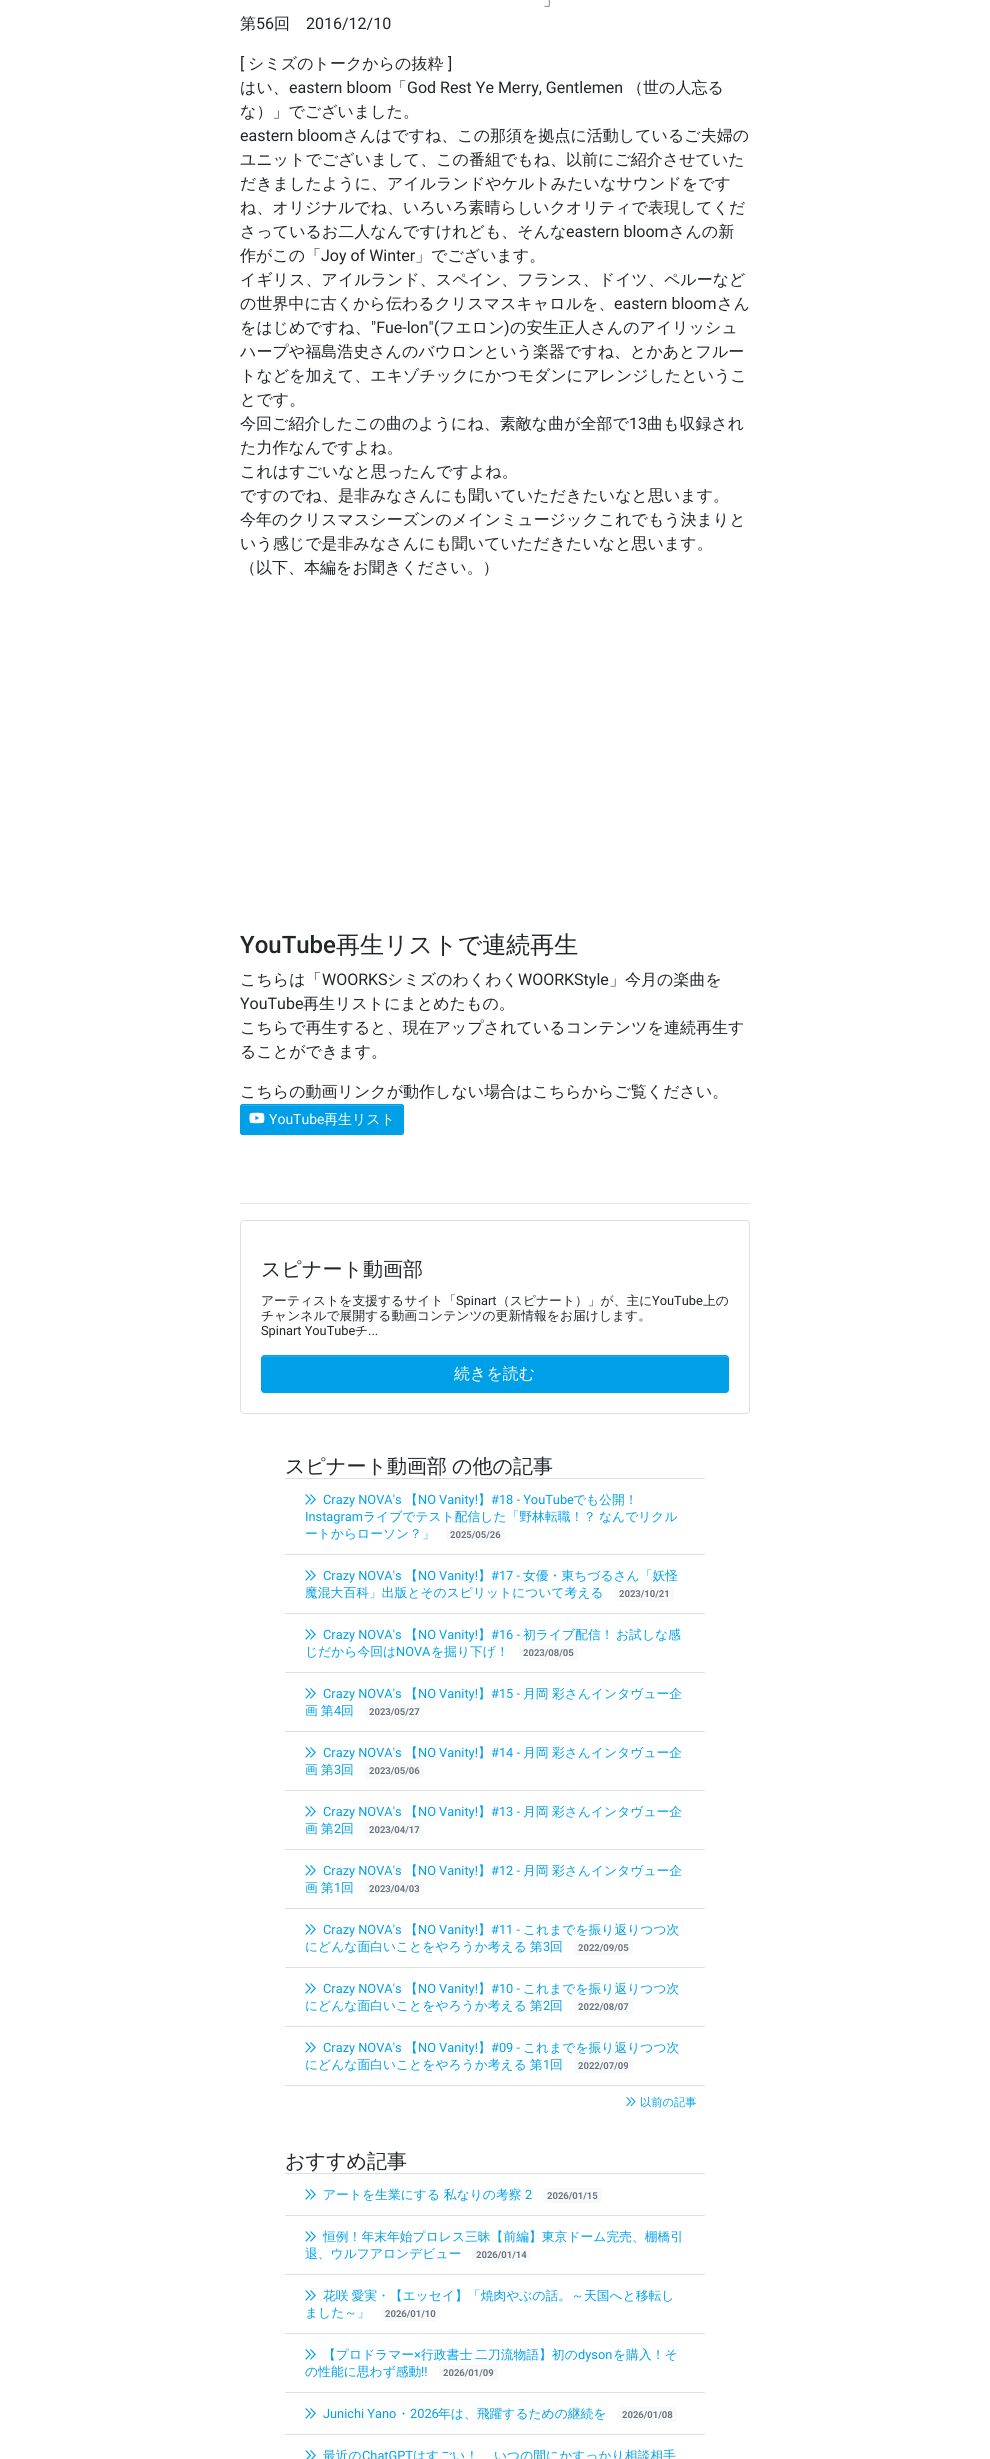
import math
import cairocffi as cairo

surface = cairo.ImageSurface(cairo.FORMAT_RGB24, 990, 2459)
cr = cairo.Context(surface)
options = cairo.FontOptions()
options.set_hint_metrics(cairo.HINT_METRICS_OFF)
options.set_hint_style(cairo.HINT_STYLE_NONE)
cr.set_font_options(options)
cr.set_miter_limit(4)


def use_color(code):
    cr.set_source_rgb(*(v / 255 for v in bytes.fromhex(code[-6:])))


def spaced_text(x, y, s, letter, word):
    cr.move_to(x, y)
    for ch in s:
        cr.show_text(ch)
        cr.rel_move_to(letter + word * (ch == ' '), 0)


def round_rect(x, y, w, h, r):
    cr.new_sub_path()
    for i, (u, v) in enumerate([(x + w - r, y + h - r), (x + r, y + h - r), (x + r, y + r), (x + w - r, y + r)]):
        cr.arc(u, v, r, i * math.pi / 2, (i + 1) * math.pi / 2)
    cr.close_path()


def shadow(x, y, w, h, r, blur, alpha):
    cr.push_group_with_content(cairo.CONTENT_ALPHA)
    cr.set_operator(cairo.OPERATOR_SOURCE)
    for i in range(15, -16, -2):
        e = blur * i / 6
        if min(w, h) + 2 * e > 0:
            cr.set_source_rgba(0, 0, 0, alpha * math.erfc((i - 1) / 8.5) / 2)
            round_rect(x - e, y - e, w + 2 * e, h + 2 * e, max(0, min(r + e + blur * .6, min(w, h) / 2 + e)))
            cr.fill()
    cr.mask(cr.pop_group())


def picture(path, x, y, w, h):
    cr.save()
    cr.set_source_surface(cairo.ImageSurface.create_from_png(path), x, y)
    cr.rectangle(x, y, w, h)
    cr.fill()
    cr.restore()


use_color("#ffffff")
cr.paint()
cr.select_font_face("WenQuanYi Zen Hei Medium")
cr.set_font_size(16)
use_color("#212529")
cr.move_to(543, 5)
cr.show_text("」")
cr.move_to(240, 29)
cr.show_text("第")
cr.select_font_face("Roboto")
cr.move_to(256, 29)
cr.show_text("56")
cr.select_font_face("WenQuanYi Zen Hei Medium")
cr.move_to(274, 29)
cr.show_text("回")
cr.select_font_face("Roboto")
cr.move_to(306, 29)
cr.show_text("2016/12/10")
cr.move_to(240, 69)
cr.show_text("[")
cr.select_font_face("WenQuanYi Zen Hei Medium")
cr.move_to(248, 69)
cr.show_text("シミズのトークからの抜粋")
cr.select_font_face("Roboto")
cr.move_to(448, 69)
cr.show_text("]")
cr.select_font_face("WenQuanYi Zen Hei Medium")
cr.move_to(240, 93)
cr.show_text("はい、")
cr.select_font_face("Roboto")
cr.move_to(289, 93)
cr.show_text("eastern bloom")
cr.select_font_face("WenQuanYi Zen Hei Medium")
cr.move_to(391, 93)
cr.show_text("「")
cr.select_font_face("Roboto")
cr.move_to(407, 93)
cr.show_text("God Rest Ye Merry, Gentlemen")
cr.select_font_face("WenQuanYi Zen Hei Medium")
cr.move_to(627, 93)
cr.show_text("（世の人忘る")
cr.move_to(240, 117)
cr.show_text("な）」でございました。")
cr.select_font_face("Roboto")
cr.move_to(240, 141)
cr.show_text("eastern bloom")
cr.select_font_face("WenQuanYi Zen Hei Medium")
cr.move_to(343, 141)
cr.show_text("さんはですね、この那須を拠点に活動しているご夫婦の")
cr.move_to(240, 165)
cr.show_text("ユニットでございまして、この番組でもね、以前にご紹介させていた")
cr.move_to(240, 189)
cr.show_text("だきましたように、アイルランドやケルトみたいなサウンドをです")
cr.move_to(240, 213)
cr.show_text("ね、オリジナルでね、いろいろ素晴らしいクオリティで表現してくだ")
cr.move_to(240, 237)
cr.show_text("さっているお二人なんですけれども、そんな")
cr.select_font_face("Roboto")
cr.move_to(566, 237)
cr.show_text("eastern bloom")
cr.select_font_face("WenQuanYi Zen Hei Medium")
cr.move_to(669, 237)
cr.show_text("さんの新")
cr.move_to(240, 261)
cr.show_text("作がこの「")
cr.select_font_face("Roboto")
cr.move_to(321, 261)
cr.show_text("Joy of Winter")
cr.select_font_face("WenQuanYi Zen Hei Medium")
cr.move_to(415, 261)
cr.show_text("」でございます。")
cr.move_to(240, 285)
cr.show_text("イギリス、アイルランド、スペイン、フランス、ドイツ、ペルーなど")
cr.move_to(240, 309)
cr.show_text("の世界中に古くから伝わるクリスマスキャロルを、")
cr.select_font_face("Roboto")
cr.move_to(614, 309)
cr.show_text("eastern bloom")
cr.select_font_face("WenQuanYi Zen Hei Medium")
cr.move_to(717, 309)
cr.show_text("さん")
cr.move_to(240, 333)
cr.show_text("をはじめですね、")
cr.select_font_face("Roboto")
cr.move_to(371, 333)
cr.show_text("\"Fue-lon\"(")
cr.select_font_face("WenQuanYi Zen Hei Medium")
cr.move_to(439, 333)
cr.show_text("フエロン")
cr.select_font_face("Roboto")
cr.move_to(504, 333)
cr.show_text(")")
cr.select_font_face("WenQuanYi Zen Hei Medium")
cr.move_to(510, 333)
cr.show_text("の安生正人さんのアイリッシュ")
cr.move_to(240, 357)
cr.show_text("ハープや福島浩史さんのバウロンという楽器ですね、とかあとフルー")
cr.move_to(240, 381)
cr.show_text("トなどを加えて、エキゾチックにかつモダンにアレンジしたというこ")
cr.move_to(240, 405)
cr.show_text("とです。")
cr.move_to(240, 429)
cr.show_text("今回ご紹介したこの曲のようにね、素敵な曲が全部で")
cr.select_font_face("Roboto")
cr.move_to(629, 429)
cr.show_text("13")
cr.select_font_face("WenQuanYi Zen Hei Medium")
cr.move_to(647, 429)
cr.show_text("曲も収録され")
cr.move_to(240, 453)
cr.show_text("た力作なんですよね。")
cr.move_to(240, 477)
cr.show_text("これはすごいなと思ったんですよね。")
cr.move_to(240, 501)
cr.show_text("ですのでね、是非みなさんにも聞いていただきたいなと思います。")
cr.move_to(240, 525)
cr.show_text("今年のクリスマスシーズンのメインミュージックこれでもう決まりと")
cr.move_to(240, 549)
cr.show_text("いう感じで是非みなさんにも聞いていただきたいなと思います。")
cr.move_to(240, 573)
cr.show_text("（以下、本編をお聞きください。）")
cr.select_font_face("Roboto Medium")
cr.set_font_size(24)
cr.move_to(240, 953)
cr.show_text("YouTube")
cr.select_font_face("WenQuanYi Zen Hei Medium")
cr.move_to(336, 953)
cr.show_text("再生リストで連続再生")
cr.set_font_size(16)
cr.move_to(240, 985)
cr.show_text("こちらは「")
cr.select_font_face("Roboto")
cr.move_to(322, 985)
cr.show_text("WOORKS")
cr.select_font_face("WenQuanYi Zen Hei Medium")
cr.move_to(387, 985)
cr.show_text("シミズのわくわく")
cr.select_font_face("Roboto")
cr.move_to(518, 985)
cr.show_text("WOORKStyle")
cr.select_font_face("WenQuanYi Zen Hei Medium")
cr.move_to(609, 985)
cr.show_text("」今月の楽曲を")
cr.select_font_face("Roboto")
cr.move_to(240, 1009)
cr.show_text("YouTube")
cr.select_font_face("WenQuanYi Zen Hei Medium")
cr.move_to(303, 1009)
cr.show_text("再生リストにまとめたもの。")
cr.move_to(240, 1033)
cr.show_text("こちらで再生すると、現在アップされているコンテンツを連続再生す")
cr.move_to(240, 1057)
cr.show_text("ることができます。")
cr.move_to(240, 1097)
cr.show_text("こちらの動画リンクが動作しない場合はこちらからご覧ください。")
use_color("#000000")
shadow(240, 1105, 164, 31, 3, 0.5, 0.07)
use_color("#00a0e9")
round_rect(240, 1104, 164, 31, 3)
cr.fill()
use_color("#26aeec")
cr.new_path()
cr.move_to(243, 1106)
cr.line_to(401, 1106)
cr.curve_to(402, 1106, 403, 1107, 403, 1108)
cr.curve_to(403, 1107, 403, 1105, 401, 1105)
cr.line_to(243, 1105)
cr.curve_to(241, 1105, 241, 1107, 241, 1108)
cr.curve_to(241, 1107, 242, 1106, 243, 1106)
cr.close_path()
cr.fill()
round_rect(240.5, 1104.5, 163, 30, 2.5)
use_color("#00a0e9")
cr.set_line_width(1)
cr.stroke()
picture("img1.png", 249, 1112, 16, 12)
cr.select_font_face("Roboto")
cr.set_font_size(14)
use_color("#ffffff")
cr.move_to(269, 1124)
cr.show_text("YouTube")
cr.select_font_face("WenQuanYi Zen Hei Medium")
cr.move_to(324, 1124)
cr.show_text("再生リスト")
use_color("#e6e6e6")
cr.rectangle(240, 1203, 510, 1)
cr.fill()
round_rect(240.5, 1220.5, 509, 193, 3.5)
use_color("#dfdfdf")
cr.stroke()
cr.set_font_size(20)
use_color("#212529")
cr.move_to(261, 1276)
cr.show_text("スピナート動画部")
cr.set_font_size(12.8)
cr.move_to(261, 1305)
cr.show_text("アーティストを支援するサイト「")
cr.select_font_face("Roboto")
cr.move_to(456, 1305)
cr.show_text("Spinart")
cr.select_font_face("WenQuanYi Zen Hei Medium")
cr.move_to(497, 1305)
cr.show_text("（スピナート）」が、主に")
cr.select_font_face("Roboto")
cr.move_to(652, 1305)
cr.show_text("YouTube")
cr.select_font_face("WenQuanYi Zen Hei Medium")
cr.move_to(703, 1305)
cr.show_text("上の")
cr.move_to(261, 1320)
cr.show_text("チャンネルで展開する動画コンテンツの更新情報をお届けします。")
cr.select_font_face("Roboto")
cr.move_to(261, 1335)
cr.show_text("Spinart YouTube")
cr.select_font_face("WenQuanYi Zen Hei Medium")
cr.move_to(355, 1335)
cr.show_text("チ")
cr.select_font_face("Roboto")
cr.move_to(368, 1335)
cr.show_text("...")
use_color("#000000")
shadow(261, 1356, 468, 38, 4, 0.5, 0.07)
use_color("#00a0e9")
round_rect(261, 1355, 468, 38, 4)
cr.fill()
use_color("#26aeec")
cr.new_path()
cr.move_to(265, 1357)
cr.line_to(725, 1357)
cr.curve_to(727, 1357, 728, 1358, 728, 1360)
cr.line_to(728, 1359)
cr.curve_to(728, 1357, 727, 1356, 725, 1356)
cr.line_to(265, 1356)
cr.curve_to(263, 1356, 262, 1357, 262, 1359)
cr.line_to(262, 1360)
cr.curve_to(262, 1358, 263, 1357, 265, 1357)
cr.close_path()
cr.fill()
round_rect(261.5, 1355.5, 467, 37, 3.5)
use_color("#00a0e9")
cr.stroke()
cr.select_font_face("WenQuanYi Zen Hei Medium")
cr.set_font_size(16)
use_color("#ffffff")
cr.move_to(454, 1379)
cr.show_text("続きを読む")
cr.set_font_size(20)
use_color("#212529")
cr.move_to(285, 1473)
cr.show_text("スピナート動画部")
cr.move_to(452, 1473)
cr.show_text("の他の記事")
use_color("#dfdfdf")
cr.rectangle(285, 1478, 420, 1)
cr.fill()
picture("img2.png", 305, 1494, 11, 11)
cr.select_font_face("Roboto")
cr.set_font_size(12.8)
use_color("#00a0e9")
cr.move_to(323, 1504)
cr.show_text("Crazy NOVA's")
cr.select_font_face("WenQuanYi Zen Hei Medium")
cr.move_to(405, 1504)
cr.show_text("【")
cr.select_font_face("Roboto")
cr.move_to(418, 1504)
cr.show_text("NO Vanity!")
cr.select_font_face("WenQuanYi Zen Hei Medium")
cr.move_to(478, 1504)
cr.show_text("】")
cr.select_font_face("Roboto")
cr.move_to(491, 1504)
cr.show_text("#18 - YouTube")
cr.select_font_face("WenQuanYi Zen Hei Medium")
cr.move_to(573, 1504)
cr.show_text("でも公開！")
cr.select_font_face("Roboto")
cr.move_to(305, 1521)
cr.show_text("Instagram")
cr.select_font_face("WenQuanYi Zen Hei Medium")
spaced_text(363, 1521, "ライブでテスト配信した「野林転職！？ なんでリクル", 0, -1)
cr.move_to(305, 1538)
cr.show_text("ートからローソン？」")
use_color("#f8f9fa")
round_rect(446, 1527, 59, 15, 4)
cr.fill()
cr.select_font_face("Roboto", cairo.FONT_SLANT_NORMAL, cairo.FONT_WEIGHT_BOLD)
cr.set_font_size(9.5)
use_color("#6c757d")
cr.move_to(450, 1538)
cr.show_text("2025/05/26")
use_color("#dfdfdf")
cr.rectangle(285, 1554, 420, 1)
cr.fill()
picture("img2.png", 305, 1570, 11, 11)
cr.select_font_face("Roboto")
cr.set_font_size(12.8)
use_color("#00a0e9")
cr.move_to(323, 1580)
cr.show_text("Crazy NOVA's")
cr.select_font_face("WenQuanYi Zen Hei Medium")
cr.move_to(405, 1580)
cr.show_text("【")
cr.select_font_face("Roboto")
cr.move_to(418, 1580)
cr.show_text("NO Vanity!")
cr.select_font_face("WenQuanYi Zen Hei Medium")
cr.move_to(478, 1580)
cr.show_text("】")
cr.select_font_face("Roboto")
cr.move_to(491, 1580)
cr.show_text("#17 -")
cr.select_font_face("WenQuanYi Zen Hei Medium")
cr.move_to(523, 1580)
cr.show_text("女優・東ちづるさん「妖怪")
cr.move_to(305, 1597)
cr.show_text("魔混大百科」出版とそのスピリットについて考える")
use_color("#f8f9fa")
round_rect(615, 1586, 59, 15, 4)
cr.fill()
cr.select_font_face("Roboto", cairo.FONT_SLANT_NORMAL, cairo.FONT_WEIGHT_BOLD)
cr.set_font_size(9.5)
use_color("#6c757d")
cr.move_to(619, 1597)
cr.show_text("2023/10/21")
use_color("#dfdfdf")
cr.rectangle(285, 1613, 420, 1)
cr.fill()
picture("img2.png", 305, 1629, 11, 11)
cr.select_font_face("Roboto")
cr.set_font_size(12.8)
use_color("#00a0e9")
cr.move_to(323, 1639)
cr.show_text("Crazy NOVA's")
cr.select_font_face("WenQuanYi Zen Hei Medium")
cr.move_to(405, 1639)
cr.show_text("【")
cr.select_font_face("Roboto")
cr.move_to(418, 1639)
cr.show_text("NO Vanity!")
cr.select_font_face("WenQuanYi Zen Hei Medium")
cr.move_to(478, 1639)
cr.show_text("】")
cr.select_font_face("Roboto")
cr.move_to(491, 1639)
cr.show_text("#16 -")
cr.select_font_face("WenQuanYi Zen Hei Medium")
cr.move_to(523, 1639)
cr.show_text("初ライブ配信！")
cr.move_to(616, 1639)
cr.show_text("お試しな感")
cr.move_to(305, 1656)
cr.show_text("じだから今回は")
cr.select_font_face("Roboto")
cr.move_to(396, 1656)
cr.show_text("NOVA")
cr.select_font_face("WenQuanYi Zen Hei Medium")
cr.move_to(431, 1656)
cr.show_text("を掘り下げ！")
use_color("#f8f9fa")
round_rect(519, 1645, 59, 15, 4)
cr.fill()
cr.select_font_face("Roboto", cairo.FONT_SLANT_NORMAL, cairo.FONT_WEIGHT_BOLD)
cr.set_font_size(9.5)
use_color("#6c757d")
cr.move_to(523, 1656)
cr.show_text("2023/08/05")
use_color("#dfdfdf")
cr.rectangle(285, 1672, 420, 1)
cr.fill()
picture("img2.png", 305, 1688, 11, 11)
cr.select_font_face("Roboto")
cr.set_font_size(12.8)
use_color("#00a0e9")
cr.move_to(323, 1698)
cr.show_text("Crazy NOVA's")
cr.select_font_face("WenQuanYi Zen Hei Medium")
cr.move_to(405, 1698)
cr.show_text("【")
cr.select_font_face("Roboto")
cr.move_to(418, 1698)
cr.show_text("NO Vanity!")
cr.select_font_face("WenQuanYi Zen Hei Medium")
cr.move_to(478, 1698)
cr.show_text("】")
cr.select_font_face("Roboto")
cr.move_to(491, 1698)
cr.show_text("#15 -")
cr.select_font_face("WenQuanYi Zen Hei Medium")
cr.move_to(523, 1698)
cr.show_text("月岡")
cr.move_to(552, 1698)
cr.show_text("彩さんインタヴュー企")
spaced_text(305, 1715, "画 第", 0, -1)
cr.select_font_face("Roboto")
cr.move_to(334, 1715)
cr.show_text("4")
cr.select_font_face("WenQuanYi Zen Hei Medium")
cr.move_to(341, 1715)
cr.show_text("回")
use_color("#f8f9fa")
round_rect(365, 1704, 59, 15, 4)
cr.fill()
cr.select_font_face("Roboto", cairo.FONT_SLANT_NORMAL, cairo.FONT_WEIGHT_BOLD)
cr.set_font_size(9.5)
use_color("#6c757d")
cr.move_to(369, 1715)
cr.show_text("2023/05/27")
use_color("#dfdfdf")
cr.rectangle(285, 1731, 420, 1)
cr.fill()
picture("img2.png", 305, 1747, 11, 11)
cr.select_font_face("Roboto")
cr.set_font_size(12.8)
use_color("#00a0e9")
cr.move_to(323, 1757)
cr.show_text("Crazy NOVA's")
cr.select_font_face("WenQuanYi Zen Hei Medium")
cr.move_to(405, 1757)
cr.show_text("【")
cr.select_font_face("Roboto")
cr.move_to(418, 1757)
cr.show_text("NO Vanity!")
cr.select_font_face("WenQuanYi Zen Hei Medium")
cr.move_to(478, 1757)
cr.show_text("】")
cr.select_font_face("Roboto")
cr.move_to(491, 1757)
cr.show_text("#14 -")
cr.select_font_face("WenQuanYi Zen Hei Medium")
cr.move_to(523, 1757)
cr.show_text("月岡")
cr.move_to(552, 1757)
cr.show_text("彩さんインタヴュー企")
spaced_text(305, 1774, "画 第", 0, -1)
cr.select_font_face("Roboto")
cr.move_to(334, 1774)
cr.show_text("3")
cr.select_font_face("WenQuanYi Zen Hei Medium")
cr.move_to(341, 1774)
cr.show_text("回")
use_color("#f8f9fa")
round_rect(365, 1763, 59, 15, 4)
cr.fill()
cr.select_font_face("Roboto", cairo.FONT_SLANT_NORMAL, cairo.FONT_WEIGHT_BOLD)
cr.set_font_size(9.5)
use_color("#6c757d")
cr.move_to(369, 1774)
cr.show_text("2023/05/06")
use_color("#dfdfdf")
cr.rectangle(285, 1790, 420, 1)
cr.fill()
picture("img2.png", 305, 1806, 11, 11)
cr.select_font_face("Roboto")
cr.set_font_size(12.8)
use_color("#00a0e9")
cr.move_to(323, 1816)
cr.show_text("Crazy NOVA's")
cr.select_font_face("WenQuanYi Zen Hei Medium")
cr.move_to(405, 1816)
cr.show_text("【")
cr.select_font_face("Roboto")
cr.move_to(418, 1816)
cr.show_text("NO Vanity!")
cr.select_font_face("WenQuanYi Zen Hei Medium")
cr.move_to(478, 1816)
cr.show_text("】")
cr.select_font_face("Roboto")
cr.move_to(491, 1816)
cr.show_text("#13 -")
cr.select_font_face("WenQuanYi Zen Hei Medium")
cr.move_to(523, 1816)
cr.show_text("月岡")
cr.move_to(552, 1816)
cr.show_text("彩さんインタヴュー企")
spaced_text(305, 1833, "画 第", 0, -1)
cr.select_font_face("Roboto")
cr.move_to(334, 1833)
cr.show_text("2")
cr.select_font_face("WenQuanYi Zen Hei Medium")
cr.move_to(341, 1833)
cr.show_text("回")
use_color("#f8f9fa")
round_rect(365, 1822, 59, 15, 4)
cr.fill()
cr.select_font_face("Roboto", cairo.FONT_SLANT_NORMAL, cairo.FONT_WEIGHT_BOLD)
cr.set_font_size(9.5)
use_color("#6c757d")
cr.move_to(369, 1833)
cr.show_text("2023/04/17")
use_color("#dfdfdf")
cr.rectangle(285, 1849, 420, 1)
cr.fill()
picture("img2.png", 305, 1865, 11, 11)
cr.select_font_face("Roboto")
cr.set_font_size(12.8)
use_color("#00a0e9")
cr.move_to(323, 1875)
cr.show_text("Crazy NOVA's")
cr.select_font_face("WenQuanYi Zen Hei Medium")
cr.move_to(405, 1875)
cr.show_text("【")
cr.select_font_face("Roboto")
cr.move_to(418, 1875)
cr.show_text("NO Vanity!")
cr.select_font_face("WenQuanYi Zen Hei Medium")
cr.move_to(478, 1875)
cr.show_text("】")
cr.select_font_face("Roboto")
cr.move_to(491, 1875)
cr.show_text("#12 -")
cr.select_font_face("WenQuanYi Zen Hei Medium")
cr.move_to(523, 1875)
cr.show_text("月岡")
cr.move_to(552, 1875)
cr.show_text("彩さんインタヴュー企")
spaced_text(305, 1892, "画 第", 0, -1)
cr.select_font_face("Roboto")
cr.move_to(334, 1892)
cr.show_text("1")
cr.select_font_face("WenQuanYi Zen Hei Medium")
cr.move_to(341, 1892)
cr.show_text("回")
use_color("#f8f9fa")
round_rect(365, 1881, 59, 15, 4)
cr.fill()
cr.select_font_face("Roboto", cairo.FONT_SLANT_NORMAL, cairo.FONT_WEIGHT_BOLD)
cr.set_font_size(9.5)
use_color("#6c757d")
cr.move_to(369, 1892)
cr.show_text("2023/04/03")
use_color("#dfdfdf")
cr.rectangle(285, 1908, 420, 1)
cr.fill()
picture("img2.png", 305, 1924, 11, 11)
cr.select_font_face("Roboto")
cr.set_font_size(12.8)
use_color("#00a0e9")
cr.move_to(323, 1934)
cr.show_text("Crazy NOVA's")
cr.select_font_face("WenQuanYi Zen Hei Medium")
cr.move_to(405, 1934)
cr.show_text("【")
cr.select_font_face("Roboto")
cr.move_to(418, 1934)
cr.show_text("NO Vanity!")
cr.select_font_face("WenQuanYi Zen Hei Medium")
cr.move_to(478, 1934)
cr.show_text("】")
cr.select_font_face("Roboto")
cr.move_to(491, 1934)
cr.show_text("#11 -")
cr.select_font_face("WenQuanYi Zen Hei Medium")
cr.move_to(523, 1934)
cr.show_text("これまでを振り返りつつ次")
spaced_text(305, 1951, "にどんな面白いことをやろうか考える 第", 0, -1)
cr.select_font_face("Roboto")
cr.move_to(543, 1951)
cr.show_text("3")
cr.select_font_face("WenQuanYi Zen Hei Medium")
cr.move_to(550, 1951)
cr.show_text("回")
use_color("#f8f9fa")
round_rect(574, 1940, 59, 15, 4)
cr.fill()
cr.select_font_face("Roboto", cairo.FONT_SLANT_NORMAL, cairo.FONT_WEIGHT_BOLD)
cr.set_font_size(9.5)
use_color("#6c757d")
cr.move_to(578, 1951)
cr.show_text("2022/09/05")
use_color("#dfdfdf")
cr.rectangle(285, 1967, 420, 1)
cr.fill()
picture("img2.png", 305, 1983, 11, 11)
cr.select_font_face("Roboto")
cr.set_font_size(12.8)
use_color("#00a0e9")
cr.move_to(323, 1993)
cr.show_text("Crazy NOVA's")
cr.select_font_face("WenQuanYi Zen Hei Medium")
cr.move_to(405, 1993)
cr.show_text("【")
cr.select_font_face("Roboto")
cr.move_to(418, 1993)
cr.show_text("NO Vanity!")
cr.select_font_face("WenQuanYi Zen Hei Medium")
cr.move_to(478, 1993)
cr.show_text("】")
cr.select_font_face("Roboto")
cr.move_to(491, 1993)
cr.show_text("#10 -")
cr.select_font_face("WenQuanYi Zen Hei Medium")
cr.move_to(523, 1993)
cr.show_text("これまでを振り返りつつ次")
spaced_text(305, 2010, "にどんな面白いことをやろうか考える 第", 0, -1)
cr.select_font_face("Roboto")
cr.move_to(543, 2010)
cr.show_text("2")
cr.select_font_face("WenQuanYi Zen Hei Medium")
cr.move_to(550, 2010)
cr.show_text("回")
use_color("#f8f9fa")
round_rect(574, 1999, 59, 15, 4)
cr.fill()
cr.select_font_face("Roboto", cairo.FONT_SLANT_NORMAL, cairo.FONT_WEIGHT_BOLD)
cr.set_font_size(9.5)
use_color("#6c757d")
cr.move_to(578, 2010)
cr.show_text("2022/08/07")
use_color("#dfdfdf")
cr.rectangle(285, 2026, 420, 1)
cr.fill()
cr.rectangle(285, 2085, 420, 1)
cr.fill()
picture("img2.png", 305, 2042, 11, 11)
cr.select_font_face("Roboto")
cr.set_font_size(12.8)
use_color("#00a0e9")
cr.move_to(323, 2052)
cr.show_text("Crazy NOVA's")
cr.select_font_face("WenQuanYi Zen Hei Medium")
cr.move_to(405, 2052)
cr.show_text("【")
cr.select_font_face("Roboto")
cr.move_to(418, 2052)
cr.show_text("NO Vanity!")
cr.select_font_face("WenQuanYi Zen Hei Medium")
cr.move_to(478, 2052)
cr.show_text("】")
cr.select_font_face("Roboto")
cr.move_to(491, 2052)
cr.show_text("#09 -")
cr.select_font_face("WenQuanYi Zen Hei Medium")
cr.move_to(523, 2052)
cr.show_text("これまでを振り返りつつ次")
spaced_text(305, 2069, "にどんな面白いことをやろうか考える 第", 0, -1)
cr.select_font_face("Roboto")
cr.move_to(543, 2069)
cr.show_text("1")
cr.select_font_face("WenQuanYi Zen Hei Medium")
cr.move_to(550, 2069)
cr.show_text("回")
use_color("#f8f9fa")
round_rect(574, 2058, 59, 15, 4)
cr.fill()
cr.select_font_face("Roboto", cairo.FONT_SLANT_NORMAL, cairo.FONT_WEIGHT_BOLD)
cr.set_font_size(9.5)
use_color("#6c757d")
cr.move_to(578, 2069)
cr.show_text("2022/07/09")
picture("img3.png", 626, 2097, 10, 10)
cr.select_font_face("WenQuanYi Zen Hei Medium")
cr.set_font_size(11.25)
use_color("#00a0e9")
cr.move_to(640, 2106)
cr.show_text("以前の記事")
cr.set_font_size(20)
use_color("#212529")
cr.move_to(285, 2168)
cr.show_text("おすすめ記事")
use_color("#dfdfdf")
cr.rectangle(285, 2173, 420, 1)
cr.fill()
picture("img2.png", 305, 2189, 11, 11)
cr.set_font_size(12.8)
use_color("#00a0e9")
cr.move_to(323, 2199)
cr.show_text("アートを生業にする 私なりの考察")
cr.select_font_face("Roboto")
cr.move_to(525, 2199)
cr.show_text("2")
use_color("#f8f9fa")
round_rect(543, 2188, 59, 15, 4)
cr.fill()
cr.select_font_face("Roboto", cairo.FONT_SLANT_NORMAL, cairo.FONT_WEIGHT_BOLD)
cr.set_font_size(9.5)
use_color("#6c757d")
cr.move_to(547, 2199)
cr.show_text("2026/01/15")
use_color("#dfdfdf")
cr.rectangle(285, 2215, 420, 1)
cr.fill()
picture("img2.png", 305, 2231, 11, 11)
cr.select_font_face("WenQuanYi Zen Hei Medium")
cr.set_font_size(12.8)
use_color("#00a0e9")
cr.move_to(323, 2241)
cr.show_text("恒例！年末年始プロレス三昧【前編】東京ドーム完売、棚橋引")
cr.move_to(305, 2258)
cr.show_text("退、ウルフアロンデビュー")
use_color("#f8f9fa")
round_rect(472, 2247, 59, 15, 4)
cr.fill()
cr.select_font_face("Roboto", cairo.FONT_SLANT_NORMAL, cairo.FONT_WEIGHT_BOLD)
cr.set_font_size(9.5)
use_color("#6c757d")
cr.move_to(476, 2258)
cr.show_text("2026/01/14")
use_color("#dfdfdf")
cr.rectangle(285, 2274, 420, 1)
cr.fill()
picture("img2.png", 305, 2290, 11, 11)
cr.select_font_face("WenQuanYi Zen Hei Medium")
cr.set_font_size(12.8)
use_color("#00a0e9")
spaced_text(323, 2300, "花咲 愛実・【エッセイ】「焼肉やぶの話。～天国へと移転し", 0, -1)
cr.move_to(305, 2317)
cr.show_text("ました～」")
use_color("#f8f9fa")
round_rect(381, 2306, 59, 15, 4)
cr.fill()
cr.select_font_face("Roboto", cairo.FONT_SLANT_NORMAL, cairo.FONT_WEIGHT_BOLD)
cr.set_font_size(9.5)
use_color("#6c757d")
cr.move_to(385, 2317)
cr.show_text("2026/01/10")
use_color("#dfdfdf")
cr.rectangle(285, 2333, 420, 1)
cr.fill()
picture("img2.png", 305, 2349, 11, 11)
cr.select_font_face("WenQuanYi Zen Hei Medium")
cr.set_font_size(12.8)
use_color("#00a0e9")
cr.move_to(323, 2359)
cr.show_text("【プロドラマー")
cr.select_font_face("Roboto")
cr.move_to(414, 2359)
cr.show_text("×")
cr.select_font_face("WenQuanYi Zen Hei Medium")
spaced_text(421, 2359, "行政書士 二刀流物語】初の", 0, -1)
cr.select_font_face("Roboto")
cr.move_to(578, 2359)
cr.show_text("dyson")
cr.select_font_face("WenQuanYi Zen Hei Medium")
cr.move_to(613, 2359)
cr.show_text("を購入！そ")
cr.move_to(305, 2376)
cr.show_text("の性能に思わず感動")
cr.select_font_face("Roboto")
cr.move_to(421, 2376)
cr.show_text("!!")
use_color("#f8f9fa")
round_rect(439, 2365, 59, 15, 4)
cr.fill()
cr.select_font_face("Roboto", cairo.FONT_SLANT_NORMAL, cairo.FONT_WEIGHT_BOLD)
cr.set_font_size(9.5)
use_color("#6c757d")
cr.move_to(443, 2376)
cr.show_text("2026/01/09")
use_color("#dfdfdf")
cr.rectangle(285, 2392, 420, 1)
cr.fill()
picture("img2.png", 305, 2408, 11, 11)
cr.select_font_face("Roboto")
cr.set_font_size(12.8)
use_color("#00a0e9")
cr.move_to(323, 2418)
cr.show_text("Junichi Yano")
cr.select_font_face("WenQuanYi Zen Hei Medium")
cr.move_to(397, 2418)
cr.show_text("・")
cr.select_font_face("Roboto")
cr.move_to(410, 2418)
cr.show_text("2026")
cr.select_font_face("WenQuanYi Zen Hei Medium")
cr.move_to(438, 2418)
cr.show_text("年は、飛躍するための継続を")
use_color("#f8f9fa")
round_rect(618, 2407, 59, 15, 4)
cr.fill()
cr.select_font_face("Roboto", cairo.FONT_SLANT_NORMAL, cairo.FONT_WEIGHT_BOLD)
cr.set_font_size(9.5)
use_color("#6c757d")
cr.move_to(622, 2418)
cr.show_text("2026/01/08")
use_color("#dfdfdf")
cr.rectangle(285, 2434, 420, 1)
cr.fill()
picture("img4.png", 305, 2450, 11, 9)
cr.select_font_face("WenQuanYi Zen Hei Medium")
cr.set_font_size(12.8)
use_color("#00a0e9")
cr.move_to(323, 2460)
cr.show_text("最近の")
cr.select_font_face("Roboto")
cr.move_to(362, 2460)
cr.show_text("ChatGPT")
cr.select_font_face("WenQuanYi Zen Hei Medium")
cr.move_to(413, 2460)
cr.show_text("はすごい！")
cr.move_to(494, 2460)
cr.show_text("いつの間にかすっかり相談相手")
surface.write_to_png("result.png")
